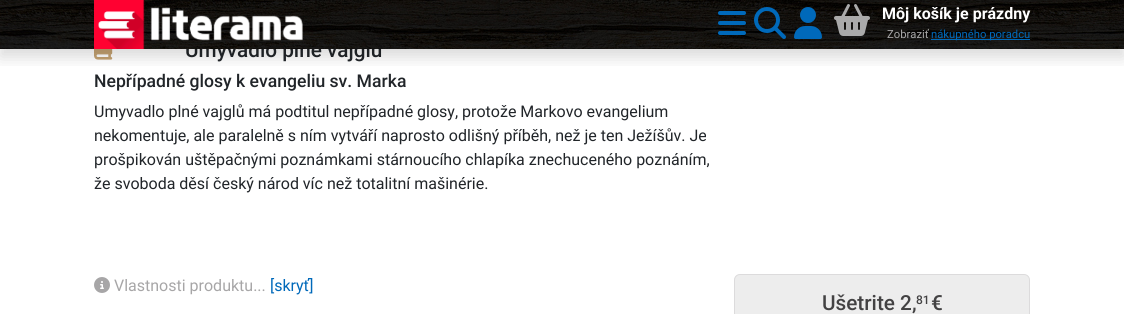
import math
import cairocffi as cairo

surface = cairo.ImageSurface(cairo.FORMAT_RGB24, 1124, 314)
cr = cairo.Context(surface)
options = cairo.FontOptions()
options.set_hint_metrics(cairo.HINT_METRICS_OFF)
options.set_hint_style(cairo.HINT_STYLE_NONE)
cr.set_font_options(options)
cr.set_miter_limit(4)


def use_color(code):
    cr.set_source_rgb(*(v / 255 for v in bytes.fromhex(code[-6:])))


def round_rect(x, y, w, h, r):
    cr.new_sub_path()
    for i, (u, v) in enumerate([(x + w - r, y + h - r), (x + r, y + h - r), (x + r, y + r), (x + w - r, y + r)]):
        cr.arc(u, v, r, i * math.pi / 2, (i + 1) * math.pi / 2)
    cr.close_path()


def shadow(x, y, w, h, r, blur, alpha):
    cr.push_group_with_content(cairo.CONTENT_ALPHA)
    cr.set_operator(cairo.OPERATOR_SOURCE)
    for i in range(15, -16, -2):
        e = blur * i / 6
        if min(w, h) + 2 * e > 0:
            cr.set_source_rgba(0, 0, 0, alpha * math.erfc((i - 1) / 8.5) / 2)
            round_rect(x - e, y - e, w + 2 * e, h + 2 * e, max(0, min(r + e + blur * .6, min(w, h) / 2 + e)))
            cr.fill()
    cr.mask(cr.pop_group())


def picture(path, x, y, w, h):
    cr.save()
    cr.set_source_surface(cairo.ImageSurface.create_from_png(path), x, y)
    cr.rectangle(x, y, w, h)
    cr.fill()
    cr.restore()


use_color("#ffffff")
cr.paint()
cr.select_font_face("Roboto Medium")
cr.set_font_size(20.75)
use_color("#212529")
cr.move_to(185, 57)
cr.show_text("Umyvadlo plné vajglů")
picture("img1.png", 0, 0, 1124, 49)
picture("img7.png", 94, 49, 19, 11)
cr.save()
cr.rectangle(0, 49, 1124, 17)
cr.clip()
use_color("#000000")
shadow(0, 8, 1124, 49, 0, 8, 0.15)
cr.restore()
picture("img2.png", 94, 0, 209, 49)
picture("img3.png", 718, 11, 28, 24)
picture("img4.png", 754, 7, 32, 32)
picture("img5.png", 794, 7, 28, 32)
picture("img6.png", 834, 4, 36, 32)
cr.select_font_face("Roboto", cairo.FONT_SLANT_NORMAL, cairo.FONT_WEIGHT_BOLD)
cr.set_font_size(16)
use_color("#ffffff")
cr.move_to(882, 19)
cr.show_text("Môj košík je prázdny")
cr.select_font_face("Roboto")
cr.set_font_size(11.25)
use_color("#a7a6a7")
cr.move_to(887, 38)
cr.show_text("Zobraziť")
use_color("#0069ba")
cr.rectangle(931, 39, 99, 1)
cr.fill()
cr.move_to(931, 38)
cr.show_text("nákupného poradcu")
cr.select_font_face("Roboto Medium")
cr.set_font_size(17.6)
use_color("#212529")
cr.move_to(94, 87)
cr.show_text("Nepřípadné glosy k evangeliu sv. Marka")
cr.select_font_face("Roboto")
cr.set_font_size(16)
cr.move_to(94, 117)
cr.show_text("Umyvadlo plné vajglů má podtitul nepřípadné glosy, protože Markovo evangelium")
cr.move_to(94, 141)
cr.show_text("nekomentuje, ale paralelně s ním vytváří naprosto odlišný příběh, než je ten Ježíšův. Je")
cr.move_to(94, 165)
cr.show_text("prošpikován uštěpačnými poznámkami stárnoucího chlapíka znechuceného poznáním,")
cr.move_to(94, 189)
cr.show_text("že svoboda děsí český národ víc než totalitní mašinérie.")
picture("img8.png", 94, 277, 16, 16)
use_color("#a7a6a7")
cr.move_to(114, 291)
cr.show_text("Vlastnosti produktu...")
use_color("#0069ba")
cr.move_to(270, 291)
cr.show_text("[skryť]")
use_color("#ededed")
round_rect(734.5, 274.5, 295, 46, 5.5)
cr.fill_preserve()
use_color("#dcdbdc")
cr.set_line_width(1)
cr.stroke()
cr.select_font_face("Roboto Medium")
cr.set_font_size(20.75)
use_color("#434243")
cr.move_to(822, 310)
cr.show_text("Ušetrite 2,")
cr.set_font_size(12)
cr.move_to(916, 304)
cr.show_text("81")
cr.set_font_size(20.75)
cr.move_to(931, 310)
cr.show_text("€")
surface.write_to_png("result.png")
